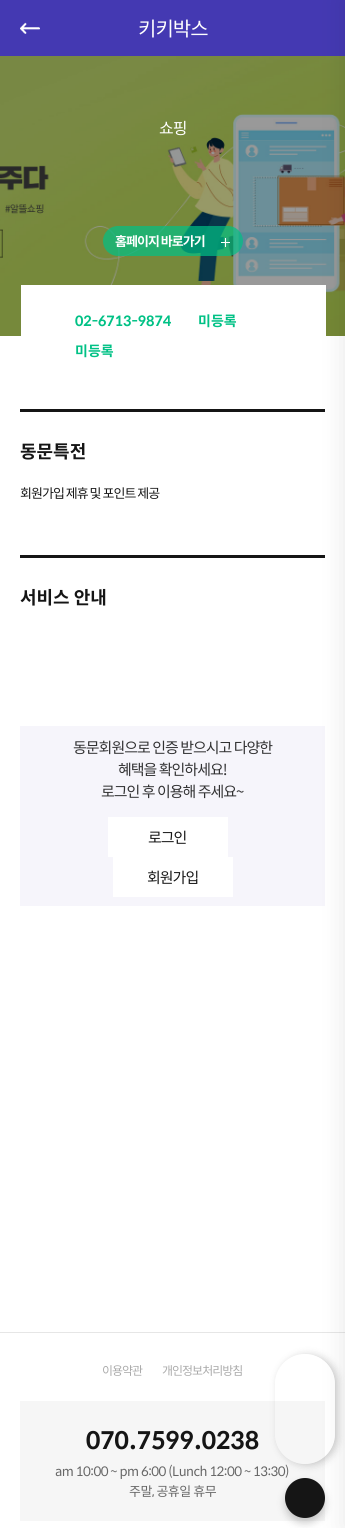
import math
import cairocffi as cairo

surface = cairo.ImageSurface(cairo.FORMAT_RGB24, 345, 1528)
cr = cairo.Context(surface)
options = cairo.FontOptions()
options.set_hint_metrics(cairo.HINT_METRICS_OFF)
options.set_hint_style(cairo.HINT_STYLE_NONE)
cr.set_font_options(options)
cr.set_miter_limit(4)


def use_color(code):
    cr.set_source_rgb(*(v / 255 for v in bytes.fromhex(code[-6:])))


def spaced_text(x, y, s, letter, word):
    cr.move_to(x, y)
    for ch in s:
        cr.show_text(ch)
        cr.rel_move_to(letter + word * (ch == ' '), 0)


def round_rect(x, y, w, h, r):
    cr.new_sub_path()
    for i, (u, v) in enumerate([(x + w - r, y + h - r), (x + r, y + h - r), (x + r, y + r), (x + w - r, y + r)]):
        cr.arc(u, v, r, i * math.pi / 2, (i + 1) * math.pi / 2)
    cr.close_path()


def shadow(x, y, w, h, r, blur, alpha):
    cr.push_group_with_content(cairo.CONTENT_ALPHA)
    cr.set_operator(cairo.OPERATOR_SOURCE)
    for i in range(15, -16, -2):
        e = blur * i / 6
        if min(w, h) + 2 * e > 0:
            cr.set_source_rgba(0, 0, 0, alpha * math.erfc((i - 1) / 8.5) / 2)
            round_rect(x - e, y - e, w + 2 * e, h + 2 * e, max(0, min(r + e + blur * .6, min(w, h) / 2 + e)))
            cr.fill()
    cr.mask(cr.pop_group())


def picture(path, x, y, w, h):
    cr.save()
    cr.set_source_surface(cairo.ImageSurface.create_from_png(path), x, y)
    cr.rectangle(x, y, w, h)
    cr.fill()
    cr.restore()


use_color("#ffffff")
cr.paint()
use_color("#4439b2")
cr.rectangle(0, 0, 345, 56)
cr.fill()
picture("img1.png", 20, 22, 20, 12)
cr.select_font_face("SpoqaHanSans")
cr.set_font_size(20)
use_color("#ffffff")
spaced_text(138, 36, "키키박스", -1, 0)
picture("img2.png", 0, 56, 345, 280)
cr.rectangle(21, 285, 305, 51)
cr.fill()
use_color("#151515")
cr.rectangle(20, 409, 305, 3)
cr.fill()
cr.rectangle(20, 555, 305, 3)
cr.fill()
use_color("#f6f5fb")
cr.rectangle(20, 726, 305, 180)
cr.fill()
use_color("#e6e6e6")
cr.rectangle(0, 1332, 345, 1)
cr.fill()
use_color("#f6f6f6")
cr.rectangle(20, 1401, 305, 120)
cr.fill()
cr.set_font_size(13)
use_color("#666666")
spaced_text(55, 1476, "am 10:00 ~ pm 6:00 (Lunch 12:00 ~ 13:30)", -0.5, 0)
use_color("#000000")
shadow(285, 1483, 40, 40, 20, 4, 0.2)
use_color("#151515")
cr.arc(305, 1498, 20, 0, 2 * math.pi)
cr.fill()
use_color("#000000")
shadow(345, 0, 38, 1528, 0, 12.5, 0.1)
cr.set_font_size(16)
use_color("#ffffff")
spaced_text(159, 134, "쇼핑", -1, 0)
cr.set_source_rgba(0, 0.757, 0.522, 0.7)
round_rect(103, 226, 140, 30, 15)
cr.fill()
cr.select_font_face("SpoqaHanSans", cairo.FONT_SLANT_NORMAL, cairo.FONT_WEIGHT_BOLD)
cr.set_font_size(13)
use_color("#ffffff")
spaced_text(115, 246, "홈페이지 바로가기", -1, 0)
picture("img3.png", 221, 238, 9, 9)
cr.set_font_size(14)
use_color("#00c185")
cr.move_to(75, 326)
cr.show_text("02-6713-9874")
cr.move_to(198, 326)
cr.show_text("미등록")
cr.move_to(75, 356)
cr.show_text("미등록")
cr.set_font_size(18)
use_color("#151515")
cr.move_to(20, 458)
cr.show_text("동문특전")
cr.select_font_face("SpoqaHanSans")
cr.set_font_size(13)
spaced_text(20, 498, "회원가입 제휴 및 포인트 제공", -1, 0)
cr.select_font_face("SpoqaHanSans", cairo.FONT_SLANT_NORMAL, cairo.FONT_WEIGHT_BOLD)
cr.set_font_size(18)
cr.move_to(20, 604)
cr.show_text("서비스 안내")
cr.select_font_face("SpoqaHanSans")
cr.set_font_size(15)
use_color("#313132")
spaced_text(73, 753, "동문회원으로 인증 받으시고 다양한", -1, 0)
spaced_text(118, 775, "혜택을 확인하세요!", -1, 0)
spaced_text(101, 797, "로그인 후 이용해 주세요~", -1, 0)
use_color("#ffffff")
cr.rectangle(108, 817, 120, 40)
cr.fill()
use_color("#151515")
spaced_text(148, 843, "로그인", -1, 0)
use_color("#ffffff")
cr.rectangle(113, 857, 120, 40)
cr.fill()
use_color("#151515")
spaced_text(147, 883, "회원가입", -1, 0)
cr.set_font_size(12)
use_color("#aaaaaa")
spaced_text(102, 1375, "이용약관", -1, 0)
spaced_text(162, 1375, "개인정보처리방침", -1, 0)
cr.select_font_face("SpoqaHanSans", cairo.FONT_SLANT_NORMAL, cairo.FONT_WEIGHT_BOLD)
cr.set_font_size(24)
use_color("#151515")
cr.move_to(86, 1449)
cr.show_text("070.7599.0238")
cr.select_font_face("SpoqaHanSans")
cr.set_font_size(13)
use_color("#666666")
spaced_text(129, 1496, "주말, 공휴일 휴무", -0.5, 0)
cr.save()
cr.set_fill_rule(cairo.FILL_RULE_EVEN_ODD)
cr.new_path()
cr.move_to(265, 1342)
cr.line_to(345, 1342)
cr.line_to(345, 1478)
cr.line_to(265, 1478)
cr.close_path()
cr.move_to(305, 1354)
cr.curve_to(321.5, 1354, 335, 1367.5, 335, 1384)
cr.line_to(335, 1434)
cr.curve_to(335, 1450.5, 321.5, 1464, 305, 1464)
cr.curve_to(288.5, 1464, 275, 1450.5, 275, 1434)
cr.line_to(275, 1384)
cr.curve_to(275, 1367.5, 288.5, 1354, 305, 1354)
cr.close_path()
cr.clip()
use_color("#000000")
shadow(278, 1355, 60, 110, 30, 4, 0.2)
cr.restore()
surface.write_to_png("result.png")
